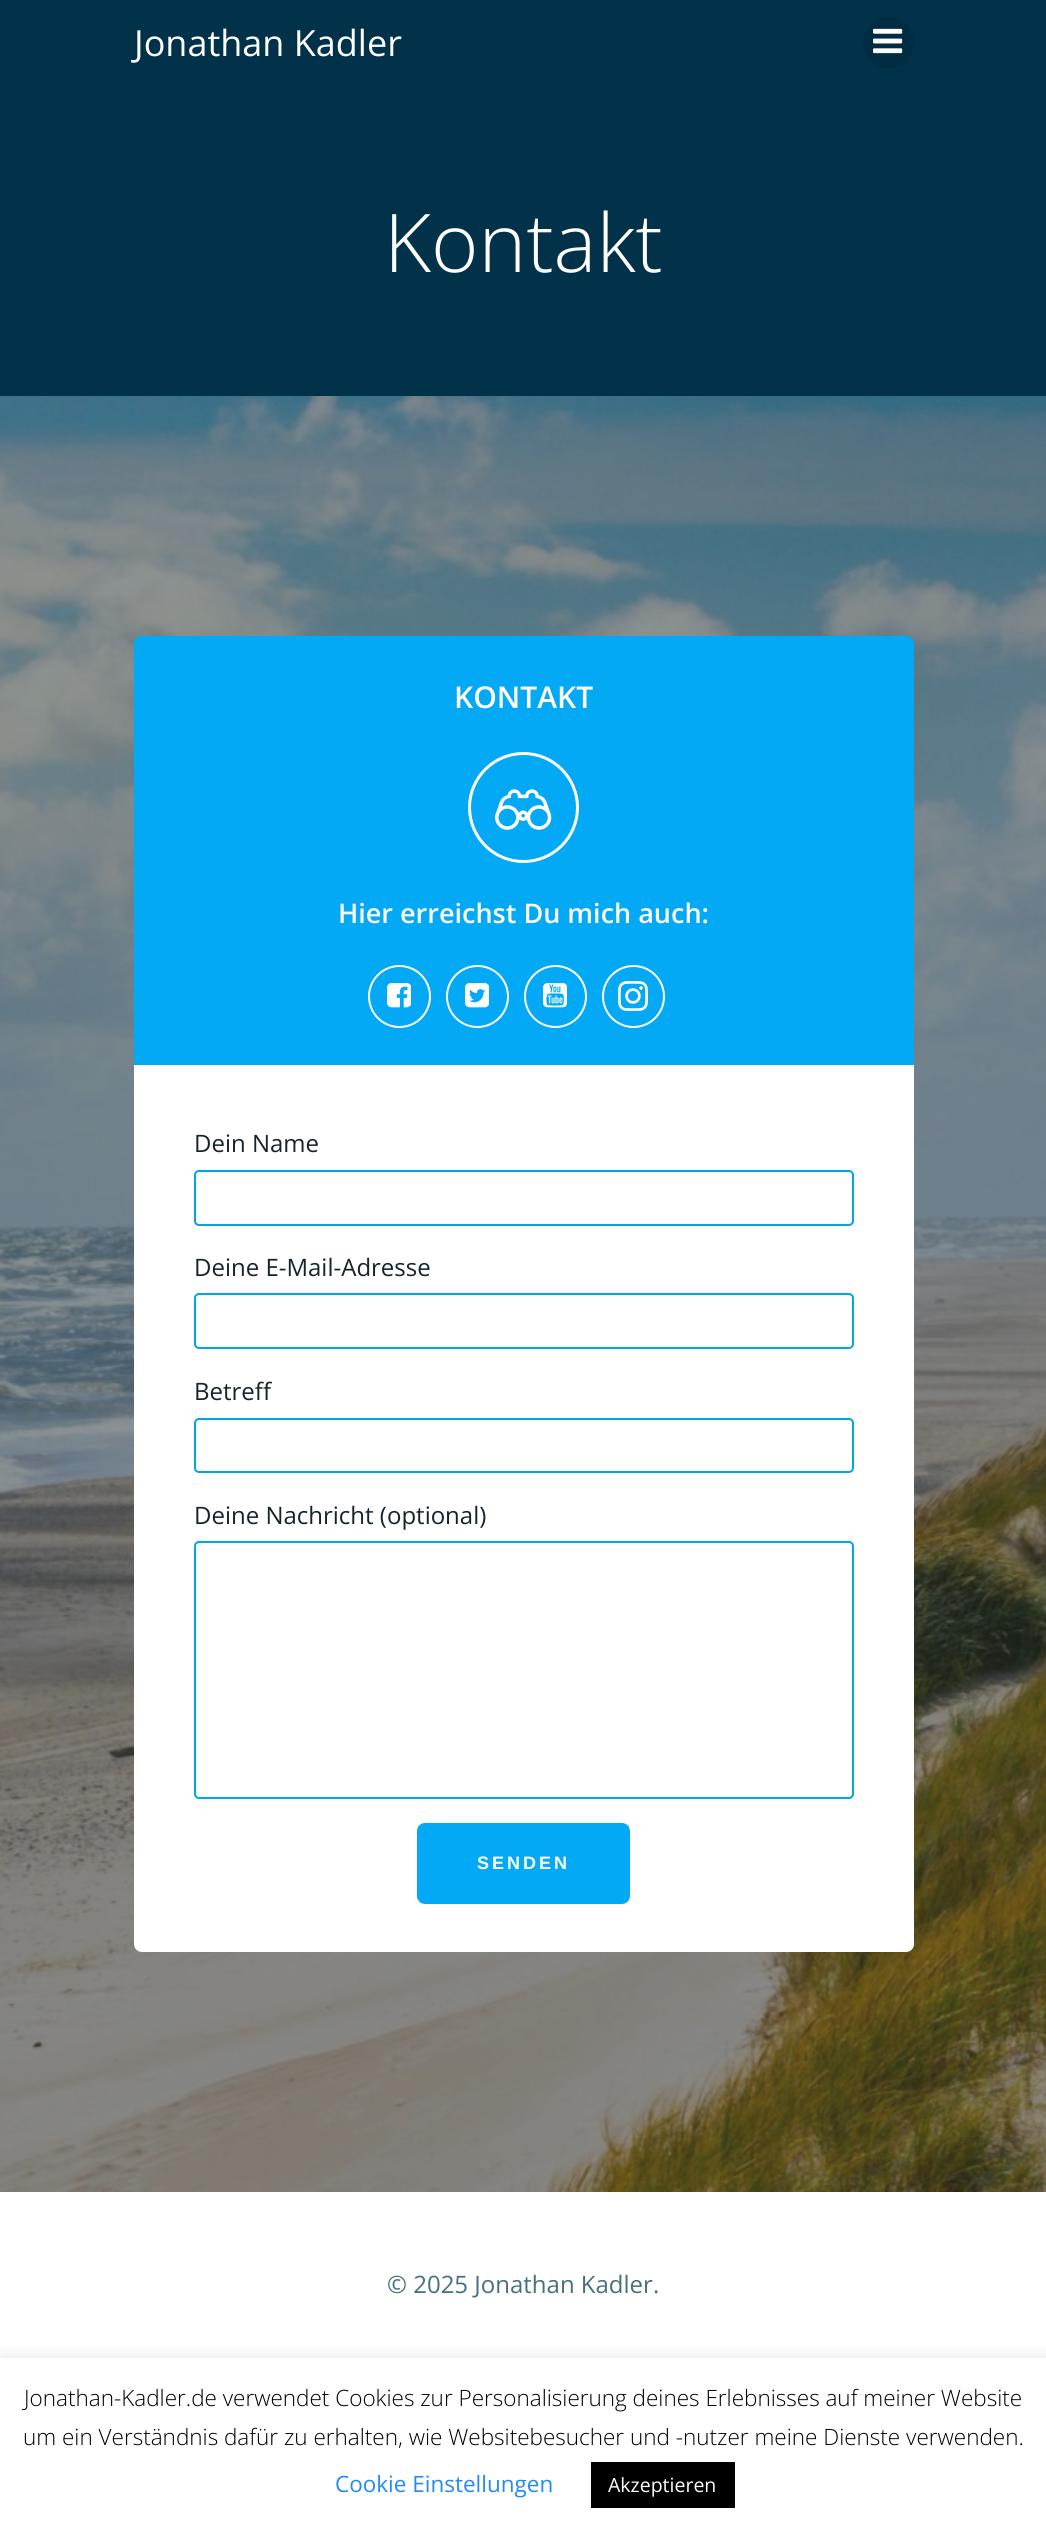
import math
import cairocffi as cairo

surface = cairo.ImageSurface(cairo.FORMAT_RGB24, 1046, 2533)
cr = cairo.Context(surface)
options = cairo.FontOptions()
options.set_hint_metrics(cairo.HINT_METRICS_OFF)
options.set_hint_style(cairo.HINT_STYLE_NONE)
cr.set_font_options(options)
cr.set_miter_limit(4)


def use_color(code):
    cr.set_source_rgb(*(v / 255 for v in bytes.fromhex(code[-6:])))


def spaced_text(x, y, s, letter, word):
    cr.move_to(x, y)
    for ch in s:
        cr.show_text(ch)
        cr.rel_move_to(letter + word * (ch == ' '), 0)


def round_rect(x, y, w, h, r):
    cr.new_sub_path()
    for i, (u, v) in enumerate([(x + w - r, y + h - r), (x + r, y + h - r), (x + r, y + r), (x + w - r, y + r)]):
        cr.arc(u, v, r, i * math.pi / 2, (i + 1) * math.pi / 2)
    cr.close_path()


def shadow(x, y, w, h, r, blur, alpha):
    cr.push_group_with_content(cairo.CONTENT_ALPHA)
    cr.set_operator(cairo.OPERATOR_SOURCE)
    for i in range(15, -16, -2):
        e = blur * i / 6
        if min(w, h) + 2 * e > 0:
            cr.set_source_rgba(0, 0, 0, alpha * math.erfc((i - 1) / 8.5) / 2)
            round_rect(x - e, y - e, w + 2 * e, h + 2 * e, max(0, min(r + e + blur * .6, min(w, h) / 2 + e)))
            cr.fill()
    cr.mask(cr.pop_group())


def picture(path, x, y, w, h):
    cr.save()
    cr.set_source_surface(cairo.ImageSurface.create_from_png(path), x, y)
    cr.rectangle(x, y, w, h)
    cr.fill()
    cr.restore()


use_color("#ffffff")
cr.paint()
use_color("#013249")
cr.rectangle(0, 0, 1046, 396)
cr.fill()
cr.select_font_face("Open Sans")
cr.set_font_size(36)
use_color("#ffffff")
cr.move_to(134, 56)
cr.show_text("Jonathan Kadler")
use_color("#012d42")
cr.new_path()
cr.arc(888.5, 42.5, 25.5, 0, 2 * math.pi)
cr.fill()
picture("img1.png", 873, 28, 30, 26)
cr.select_font_face("Open Sans Light")
cr.set_font_size(81)
use_color("#ffffff")
cr.move_to(384, 272)
cr.show_text("Kontakt")
picture("img2.png", 0, 396, 1046, 1796)
use_color("#03a9f4")
cr.new_path()
cr.move_to(142, 636)
cr.line_to(906, 636)
cr.curve_to(910.5, 636, 914, 639.5, 914, 644)
cr.line_to(914, 1065)
cr.line_to(134, 1065)
cr.line_to(134, 644)
cr.curve_to(134, 639.5, 137.5, 636, 142, 636)
cr.close_path()
cr.fill()
cr.select_font_face("Open Sans SemiBold")
cr.set_font_size(30)
use_color("#ffffff")
cr.move_to(454, 708)
cr.show_text("KONTAKT")
cr.new_path()
cr.arc(523.5, 807.5, 54, 0, 2 * math.pi)
cr.set_line_width(3)
cr.stroke()
picture("img3.png", 495, 789, 57, 41)
cr.set_font_size(27)
cr.move_to(338, 923)
cr.show_text("Hier erreichst Du mich auch:")
cr.new_path()
cr.arc(399.5, 996.5, 30.5, 0, 2 * math.pi)
cr.set_line_width(2)
cr.stroke()
picture("img4.png", 387, 983, 24, 25)
cr.arc(477.5, 996.5, 30.5, 0, 2 * math.pi)
cr.stroke()
picture("img5.png", 465, 983, 24, 25)
cr.arc(555.5, 996.5, 30.5, 0, 2 * math.pi)
cr.stroke()
picture("img6.png", 543, 983, 24, 25)
cr.arc(633.5, 996.5, 30.5, 0, 2 * math.pi)
cr.stroke()
picture("img7.png", 618, 981, 30, 30)
cr.new_path()
cr.move_to(134, 1065)
cr.line_to(914, 1065)
cr.line_to(914, 1944)
cr.curve_to(914, 1948.5, 910.5, 1952, 906, 1952)
cr.line_to(142, 1952)
cr.curve_to(137.5, 1952, 134, 1948.5, 134, 1944)
cr.close_path()
cr.fill()
cr.select_font_face("Open Sans")
cr.set_font_size(24)
use_color("#17252a")
cr.move_to(194, 1152)
cr.show_text("Dein Name")
round_rect(195, 1171, 658, 54, 4)
use_color("#00a7e1")
cr.stroke()
use_color("#17252a")
cr.move_to(194, 1276)
cr.show_text("Deine E-Mail-Adresse")
round_rect(195, 1294, 658, 54, 4)
use_color("#00a7e1")
cr.stroke()
use_color("#17252a")
cr.move_to(194, 1400)
cr.show_text("Betreff")
round_rect(195, 1419, 658, 53, 4)
use_color("#00a7e1")
cr.stroke()
use_color("#17252a")
cr.move_to(194, 1524)
cr.show_text("Deine Nachricht (optional)")
round_rect(195, 1542, 658, 256, 4)
use_color("#00a7e1")
cr.stroke()
use_color("#03a9f4")
round_rect(417, 1823, 213, 81, 8)
cr.fill()
cr.select_font_face("Liberation Sans", cairo.FONT_SLANT_NORMAL, cairo.FONT_WEIGHT_BOLD)
cr.set_font_size(18)
use_color("#ffffff")
spaced_text(477, 1869, "SENDEN", 3, 0)
cr.select_font_face("Open Sans")
cr.set_font_size(24)
use_color("#46707f")
cr.move_to(387, 2293)
cr.show_text("© 2025 Jonathan Kadler.")
use_color("#acabab")
shadow(0, 2357, 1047, 175, 0, 7.5, 0.3)
use_color("#ffffff")
cr.rectangle(0, 2358, 1046, 175)
cr.fill()
cr.select_font_face("Open Sans Light")
cr.set_font_size(22.5)
use_color("#000000")
cr.move_to(24, 2406)
cr.show_text("Jonathan-Kadler.de verwendet Cookies zur Personalisierung deines Erlebnisses auf meiner Website")
cr.move_to(23, 2445)
cr.show_text("um ein Verständnis dafür zu erhalten, wie Websitebesucher und -nutzer meine Dienste verwenden.")
cr.select_font_face("Open Sans")
use_color("#248bf2")
cr.move_to(335, 2492)
cr.show_text("Cookie Einstellungen")
use_color("#000000")
cr.rectangle(591, 2462, 144, 46)
cr.fill()
cr.set_font_size(19.5)
use_color("#ffffff")
cr.move_to(608, 2492)
cr.show_text("Akzeptieren")
surface.write_to_png("result.png")
